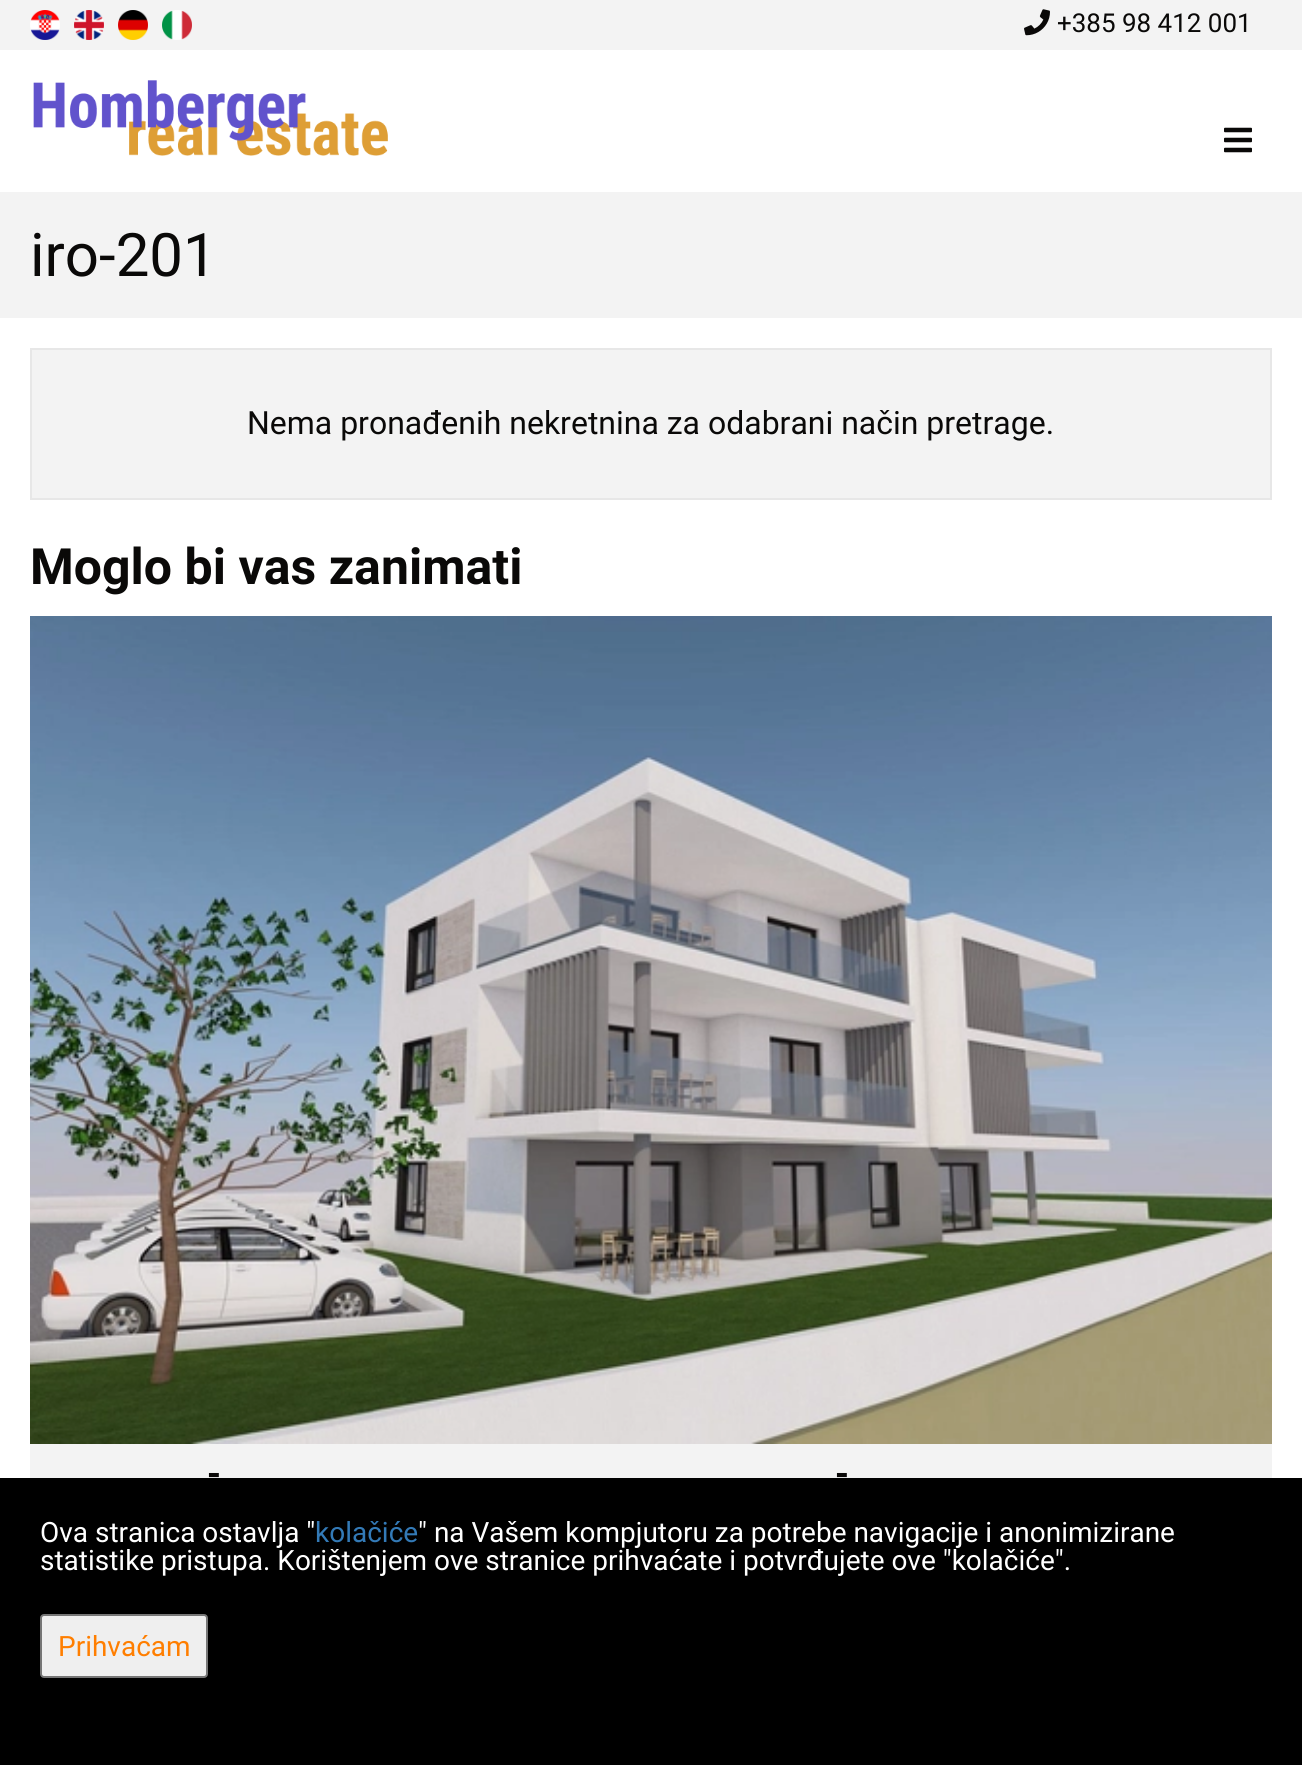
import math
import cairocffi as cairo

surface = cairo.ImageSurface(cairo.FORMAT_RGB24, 1302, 1765)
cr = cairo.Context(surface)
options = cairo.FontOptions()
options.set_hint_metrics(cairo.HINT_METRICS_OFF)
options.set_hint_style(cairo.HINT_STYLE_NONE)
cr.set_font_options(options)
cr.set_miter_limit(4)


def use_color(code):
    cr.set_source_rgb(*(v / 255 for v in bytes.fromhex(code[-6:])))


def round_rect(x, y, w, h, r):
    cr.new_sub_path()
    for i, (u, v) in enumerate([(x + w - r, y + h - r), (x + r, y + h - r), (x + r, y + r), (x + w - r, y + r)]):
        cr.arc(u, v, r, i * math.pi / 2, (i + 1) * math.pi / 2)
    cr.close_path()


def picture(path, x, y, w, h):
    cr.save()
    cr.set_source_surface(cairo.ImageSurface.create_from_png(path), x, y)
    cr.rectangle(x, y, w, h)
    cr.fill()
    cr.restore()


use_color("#ffffff")
cr.paint()
use_color("#f3f3f3")
cr.rectangle(0, 0, 1302, 50)
cr.fill()
picture("img1.png", 30, 10, 30, 30)
picture("img2.png", 74, 10, 30, 30)
picture("img3.png", 118, 10, 30, 30)
picture("img4.png", 162, 10, 30, 30)
picture("img5.png", 1024, 9, 26, 27)
cr.select_font_face("Roboto")
cr.set_font_size(26)
use_color("#0a0908")
cr.move_to(1057, 32)
cr.show_text("+385 98 412 001")
picture("img6.png", 33, 80, 355, 76)
picture("img7.png", 1224, 127, 28, 26)
use_color("#f3f3f3")
cr.rectangle(0, 192, 1302, 126)
cr.fill()
cr.set_font_size(60)
use_color("#0a0908")
cr.move_to(30, 276)
cr.show_text("iro-201")
use_color("#f3f3f3")
cr.rectangle(31, 349, 1240, 150)
cr.fill_preserve()
use_color("#e7e7e7")
cr.stroke()
cr.set_font_size(32)
use_color("#0a0908")
cr.move_to(247, 434)
cr.show_text("Nema pronađenih nekretnina za odabrani način pretrage.")
cr.select_font_face("Roboto", cairo.FONT_SLANT_NORMAL, cairo.FONT_WEIGHT_BOLD)
cr.set_font_size(50)
cr.move_to(30, 584)
cr.show_text("Moglo bi vas zanimati")
picture("img8.png", 30, 616, 1242, 828)
use_color("#f3f3f3")
cr.rectangle(30, 1444, 1242, 34)
cr.fill()
cr.set_font_size(36)
use_color("#0a0908")
cr.move_to(207, 1486)
cr.show_text("-")
cr.move_to(835, 1486)
cr.show_text("-")
use_color("#000000")
cr.rectangle(0, 1478, 1302, 287)
cr.fill()
cr.select_font_face("Roboto")
cr.set_font_size(28)
use_color("#ffffff")
cr.move_to(40, 1542)
cr.show_text("Ova stranica ostavlja \"")
use_color("#337ab7")
cr.move_to(315, 1542)
cr.show_text("kolačiće")
use_color("#ffffff")
cr.move_to(418, 1542)
cr.show_text("\" na Vašem kompjutoru za potrebe navigacije i anonimizirane")
cr.move_to(40, 1570)
cr.show_text("statistike pristupa. Korištenjem ove stranice prihvaćate i potvrđujete ove \"kolačiće\".")
use_color("#efefef")
round_rect(41, 1615, 166, 62, 3)
cr.fill_preserve()
use_color("#767676")
cr.stroke()
use_color("#ff7e00")
cr.move_to(58, 1656)
cr.show_text("Prihvaćam")
surface.write_to_png("result.png")
